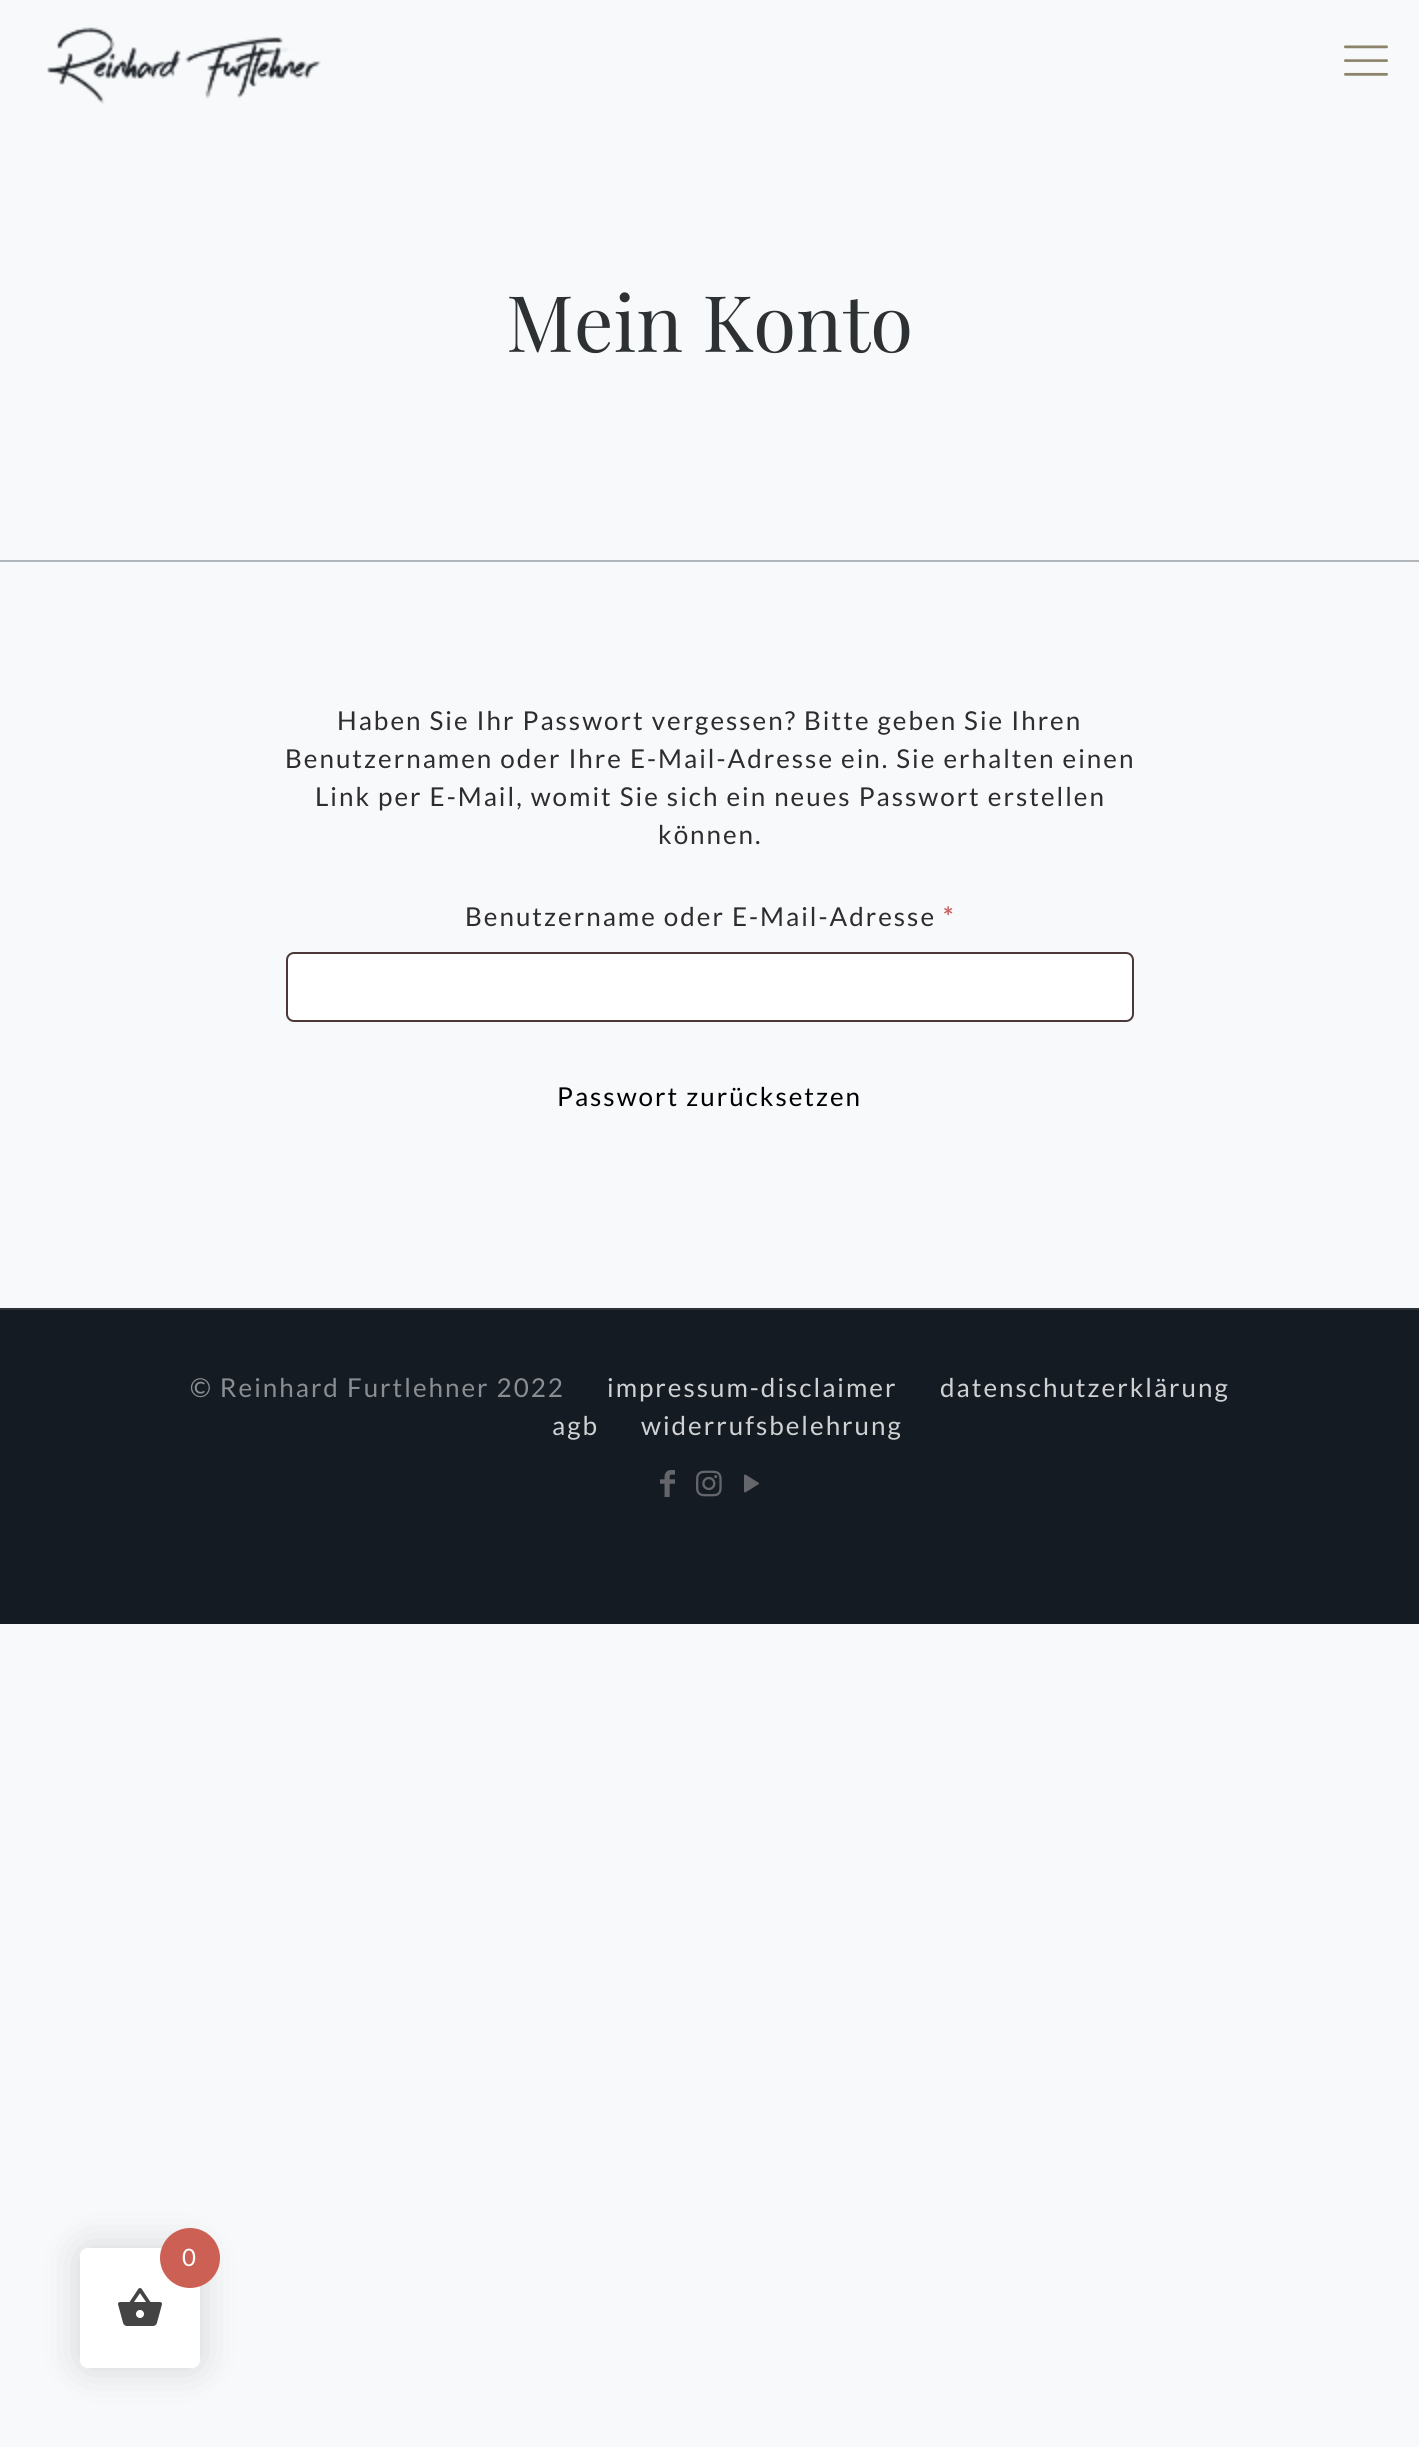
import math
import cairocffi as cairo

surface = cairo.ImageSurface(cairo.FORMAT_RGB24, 1419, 2447)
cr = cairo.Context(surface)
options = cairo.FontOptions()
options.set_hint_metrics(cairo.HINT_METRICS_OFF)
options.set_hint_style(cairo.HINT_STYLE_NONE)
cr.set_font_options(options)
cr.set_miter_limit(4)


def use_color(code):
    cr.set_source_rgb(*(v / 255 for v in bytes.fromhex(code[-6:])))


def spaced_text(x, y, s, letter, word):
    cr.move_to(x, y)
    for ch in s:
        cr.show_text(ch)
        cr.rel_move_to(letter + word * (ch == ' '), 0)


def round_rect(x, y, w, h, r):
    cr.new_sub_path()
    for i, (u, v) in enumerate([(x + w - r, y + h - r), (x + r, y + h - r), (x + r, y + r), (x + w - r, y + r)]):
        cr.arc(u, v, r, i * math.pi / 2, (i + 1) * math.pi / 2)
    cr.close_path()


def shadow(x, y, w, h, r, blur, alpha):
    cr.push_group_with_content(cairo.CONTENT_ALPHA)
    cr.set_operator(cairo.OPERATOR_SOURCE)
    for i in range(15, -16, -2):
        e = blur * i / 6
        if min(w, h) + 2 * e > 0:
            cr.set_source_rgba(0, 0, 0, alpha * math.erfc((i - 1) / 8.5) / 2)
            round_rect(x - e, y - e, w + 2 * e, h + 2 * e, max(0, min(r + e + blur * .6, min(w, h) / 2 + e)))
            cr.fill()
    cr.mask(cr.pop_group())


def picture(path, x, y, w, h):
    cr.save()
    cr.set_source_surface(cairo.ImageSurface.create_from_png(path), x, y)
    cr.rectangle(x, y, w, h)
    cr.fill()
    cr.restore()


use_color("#f7f9fa")
cr.paint()
picture("img1.png", 47, 27, 274, 77)
picture("img2.png", 1344, 45, 44, 31)
use_color("#afb5b9")
cr.rectangle(0, 560, 1419, 2)
cr.fill()
cr.select_font_face("Playfair Display")
cr.set_font_size(78)
use_color("#2d3133")
cr.move_to(506, 352)
cr.show_text("Mein Konto")
cr.select_font_face("Lato")
cr.set_font_size(26)
use_color("#2e2c2c")
spaced_text(337, 730, "Haben Sie Ihr Passwort vergessen? Bitte geben Sie Ihren", 2, 0)
spaced_text(285, 768, "Benutzernamen oder Ihre E-Mail-Adresse ein. Sie erhalten einen", 2, 0)
spaced_text(315, 806, "Link per E-Mail, womit Sie sich ein neues Passwort erstellen", 2, 0)
spaced_text(658, 844, "können.", 2, 0)
spaced_text(465, 926, "Benutzername oder E-Mail-Adresse", 2, 0)
cr.select_font_face("Lato", cairo.FONT_SLANT_NORMAL, cairo.FONT_WEIGHT_BOLD)
use_color("#c96464")
spaced_text(943, 926, "*", 2, 0)
use_color("#ffffff")
round_rect(286, 952, 848, 70, 8)
cr.fill()
round_rect(287, 953, 846, 68, 7)
cr.set_source_rgba(0.125, 0.027, 0.027, 0.8)
cr.stroke()
cr.select_font_face("Lato")
use_color("#000000")
spaced_text(557, 1106, "Passwort zurücksetzen", 2, 0)
use_color("#141b22")
cr.rectangle(0, 1310, 1419, 314)
cr.fill()
use_color("#2c3238")
cr.rectangle(0, 1308, 1419, 2)
cr.fill()
use_color("#8a8d91")
spaced_text(190, 1397, "© Reinhard Furtlehner 2022", 2, 0)
use_color("#d0d1d3")
spaced_text(607, 1397, "impressum-disclaimer", 2, 0)
spaced_text(940, 1397, "datenschutzerklärung", 2, 0)
spaced_text(552, 1435, "agb", 2, 0)
spaced_text(641, 1435, "widerrufsbelehrung", 2, 0)
picture("img3.png", 660, 1470, 15, 27)
picture("img4.png", 696, 1470, 26, 27)
picture("img5.png", 744, 1474, 15, 19)
use_color("#000000")
shadow(80, 2248, 120, 120, 8, 20, 0.15)
use_color("#ffffff")
round_rect(80, 2248, 120, 120, 8)
cr.fill()
use_color("#cc6055")
cr.arc(190, 2258, 30, 0, 2 * math.pi)
cr.fill()
cr.set_font_size(24)
use_color("#ffffff")
spaced_text(182, 2266, "0", 2, 0)
picture("img6.png", 118, 2288, 44, 38)
surface.write_to_png("result.png")
